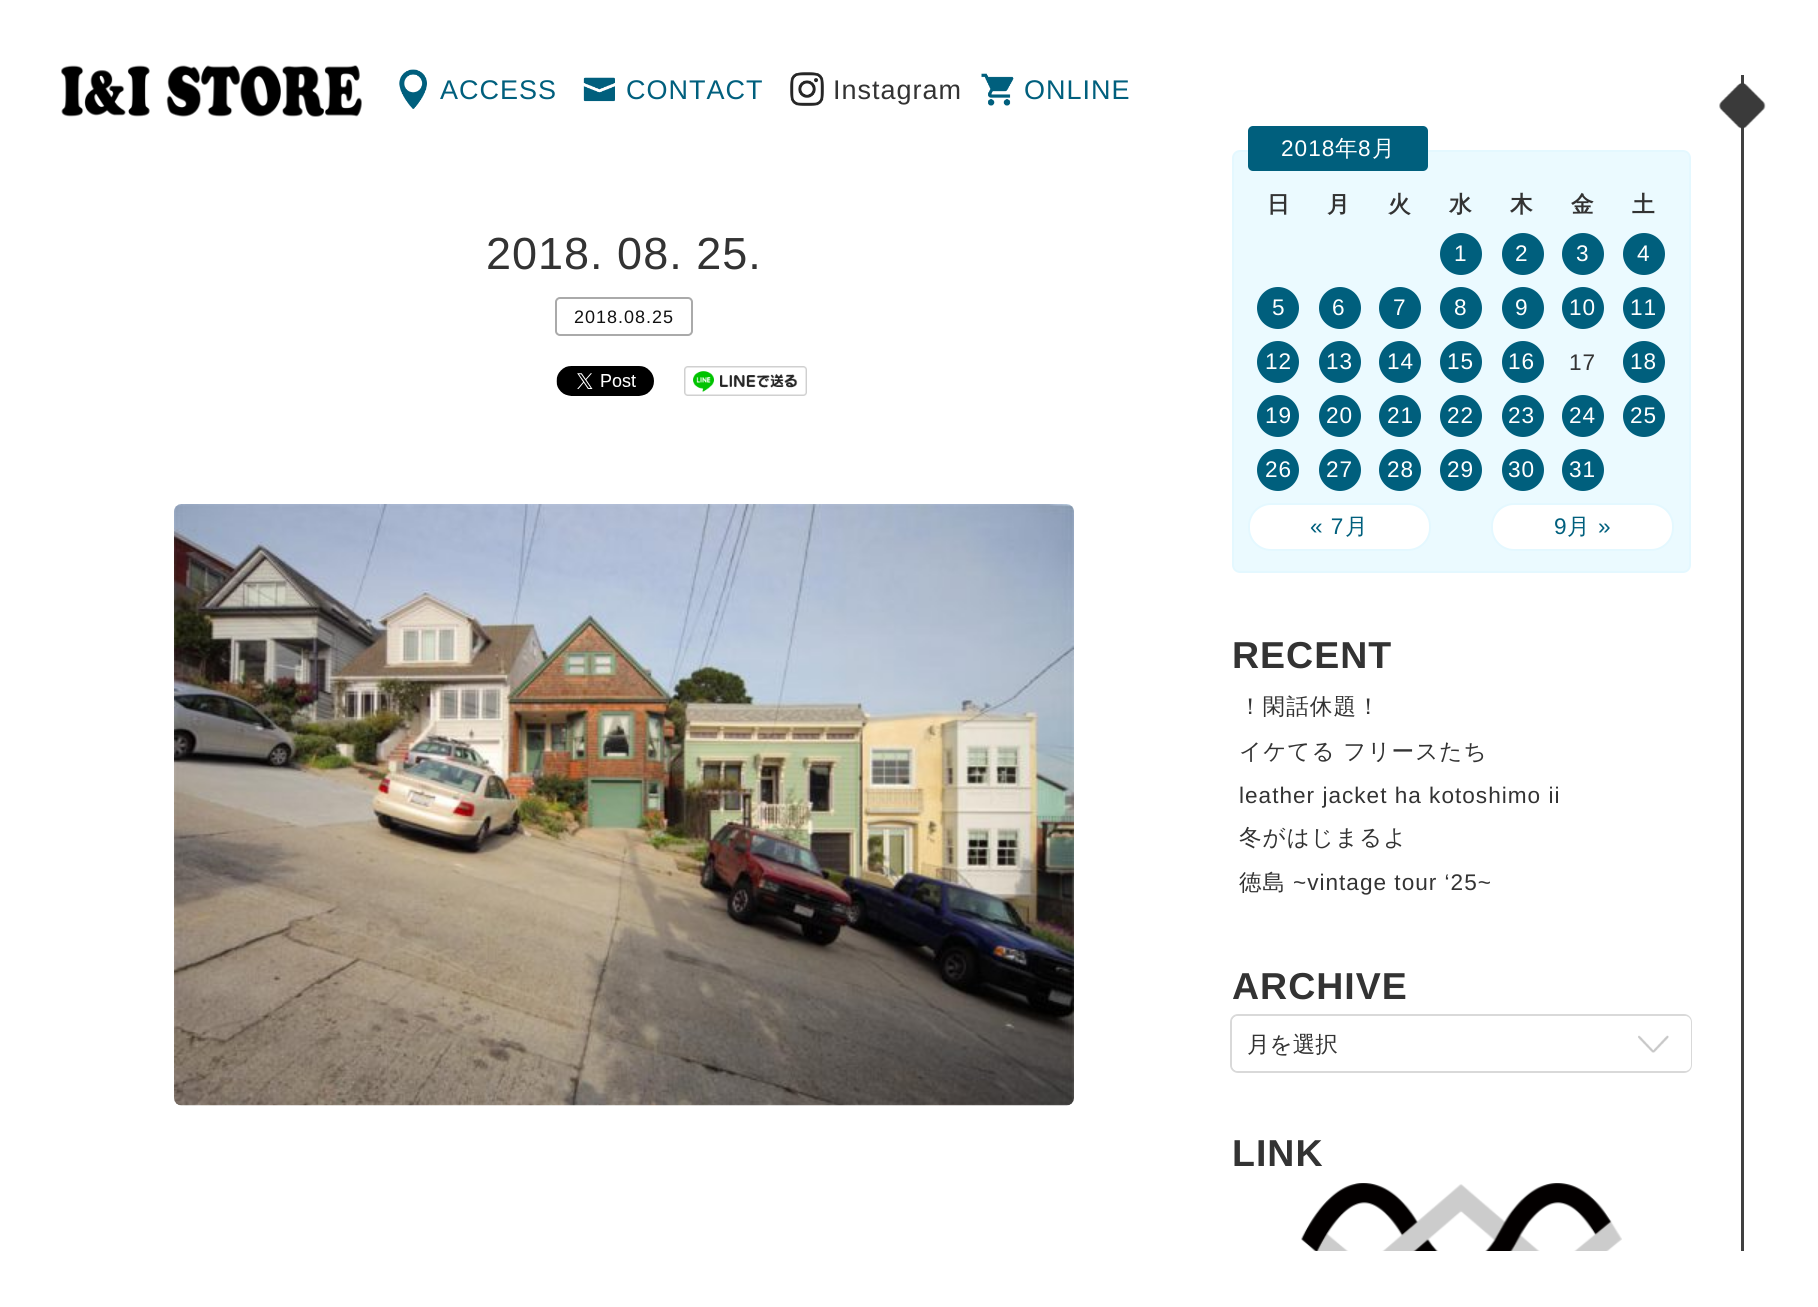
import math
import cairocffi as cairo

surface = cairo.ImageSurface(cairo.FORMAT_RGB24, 1818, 1307)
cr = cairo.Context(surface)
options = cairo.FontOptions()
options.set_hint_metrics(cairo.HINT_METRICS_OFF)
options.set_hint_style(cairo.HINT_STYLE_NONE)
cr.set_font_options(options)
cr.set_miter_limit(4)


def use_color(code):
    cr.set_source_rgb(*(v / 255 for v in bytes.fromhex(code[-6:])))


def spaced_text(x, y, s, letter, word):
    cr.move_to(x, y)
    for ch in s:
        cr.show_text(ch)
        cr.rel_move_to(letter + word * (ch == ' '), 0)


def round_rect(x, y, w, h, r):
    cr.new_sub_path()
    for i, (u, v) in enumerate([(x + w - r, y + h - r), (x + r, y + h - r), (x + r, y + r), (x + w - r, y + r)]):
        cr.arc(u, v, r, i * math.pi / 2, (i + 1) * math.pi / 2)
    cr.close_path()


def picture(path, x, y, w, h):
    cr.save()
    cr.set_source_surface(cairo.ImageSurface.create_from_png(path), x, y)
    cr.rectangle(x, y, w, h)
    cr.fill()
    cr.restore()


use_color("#ffffff")
cr.paint()
picture("img1.png", 61, 65, 301, 52)
picture("img2.png", 399, 69, 28, 40)
cr.select_font_face("Liberation Sans")
cr.set_font_size(27)
use_color("#005f7d")
spaced_text(440, 99, "ACCESS", 1, 0)
picture("img3.png", 583, 77, 32, 25)
spaced_text(626, 99, "CONTACT", 1, 0)
picture("img4.png", 790, 72, 34, 34)
use_color("#333333")
spaced_text(833, 99, "Instagram", 1, 0)
picture("img5.png", 981, 73, 33, 33)
use_color("#005f7d")
spaced_text(1024, 99, "ONLINE", 1, 0)
cr.set_font_size(45)
use_color("#333333")
spaced_text(486, 269, "2018. 08. 25.", 1, 0)
round_rect(556, 298, 136, 37, 4)
use_color("#aaaaaa")
cr.stroke()
cr.set_font_size(18)
use_color("#111111")
spaced_text(574, 323, "2018.08.25", 1, 0)
picture("img6.png", 556, 366, 98, 30)
picture("img7.png", 684, 366, 123, 30)
picture("img8.png", 174, 504, 900, 602)
use_color("#ebfaff")
round_rect(1233, 151, 457, 421, 7)
cr.fill_preserve()
use_color("#e4f8ff")
cr.stroke()
use_color("#005f7d")
round_rect(1248, 126, 180, 45, 5)
cr.fill()
cr.set_font_size(22.6)
use_color("#ffffff")
spaced_text(1281, 156, "2018", 1, 0)
cr.select_font_face("WenQuanYi Zen Hei Medium")
spaced_text(1335, 156, "年", 1, 0)
cr.select_font_face("Liberation Sans")
spaced_text(1358, 156, "8", 1, 0)
cr.select_font_face("WenQuanYi Zen Hei Medium")
spaced_text(1372, 156, "月", 1, 0)
cr.select_font_face("WenQuanYi Zen Hei", cairo.FONT_SLANT_NORMAL, cairo.FONT_WEIGHT_BOLD)
use_color("#333333")
spaced_text(1267, 212, "日", 1, 0)
spaced_text(1327, 212, "月", 1, 0)
spaced_text(1388, 212, "火", 1, 0)
spaced_text(1449, 212, "水", 1, 0)
spaced_text(1510, 212, "木", 1, 0)
spaced_text(1571, 212, "金", 1, 0)
spaced_text(1632, 212, "土", 1, 0)
use_color("#005f7d")
cr.new_path()
cr.arc(1461, 254, 21, 0, 2 * math.pi)
cr.fill()
cr.select_font_face("Liberation Sans")
use_color("#ffffff")
spaced_text(1454, 261, "1", 1, 0)
use_color("#005f7d")
cr.new_path()
cr.arc(1523, 254, 21, 0, 2 * math.pi)
cr.fill()
use_color("#ffffff")
spaced_text(1515, 261, "2", 1, 0)
use_color("#005f7d")
cr.new_path()
cr.arc(1583, 254, 21, 0, 2 * math.pi)
cr.fill()
use_color("#ffffff")
spaced_text(1576, 261, "3", 1, 0)
use_color("#005f7d")
cr.new_path()
cr.arc(1644, 254, 21, 0, 2 * math.pi)
cr.fill()
use_color("#ffffff")
spaced_text(1637, 261, "4", 1, 0)
use_color("#005f7d")
cr.new_path()
cr.arc(1278, 308, 21, 0, 2 * math.pi)
cr.fill()
use_color("#ffffff")
spaced_text(1272, 315, "5", 1, 0)
use_color("#005f7d")
cr.new_path()
cr.arc(1340, 308, 21, 0, 2 * math.pi)
cr.fill()
use_color("#ffffff")
spaced_text(1332, 315, "6", 1, 0)
use_color("#005f7d")
cr.new_path()
cr.arc(1400, 308, 21, 0, 2 * math.pi)
cr.fill()
use_color("#ffffff")
spaced_text(1393, 315, "7", 1, 0)
use_color("#005f7d")
cr.new_path()
cr.arc(1461, 308, 21, 0, 2 * math.pi)
cr.fill()
use_color("#ffffff")
spaced_text(1454, 315, "8", 1, 0)
use_color("#005f7d")
cr.new_path()
cr.arc(1523, 308, 21, 0, 2 * math.pi)
cr.fill()
use_color("#ffffff")
spaced_text(1515, 315, "9", 1, 0)
use_color("#005f7d")
cr.new_path()
cr.arc(1583, 308, 21, 0, 2 * math.pi)
cr.fill()
use_color("#ffffff")
spaced_text(1569, 315, "10", 1, 0)
use_color("#005f7d")
cr.new_path()
cr.arc(1644, 308, 21, 0, 2 * math.pi)
cr.fill()
use_color("#ffffff")
spaced_text(1630, 315, "11", 1, 0)
use_color("#005f7d")
cr.new_path()
cr.arc(1278, 362, 21, 0, 2 * math.pi)
cr.fill()
use_color("#ffffff")
spaced_text(1265, 369, "12", 1, 0)
use_color("#005f7d")
cr.new_path()
cr.arc(1340, 362, 21, 0, 2 * math.pi)
cr.fill()
use_color("#ffffff")
spaced_text(1326, 369, "13", 1, 0)
use_color("#005f7d")
cr.new_path()
cr.arc(1400, 362, 21, 0, 2 * math.pi)
cr.fill()
use_color("#ffffff")
spaced_text(1387, 369, "14", 1, 0)
use_color("#005f7d")
cr.new_path()
cr.arc(1461, 362, 21, 0, 2 * math.pi)
cr.fill()
use_color("#ffffff")
spaced_text(1447, 369, "15", 1, 0)
use_color("#005f7d")
cr.new_path()
cr.arc(1523, 362, 21, 0, 2 * math.pi)
cr.fill()
use_color("#ffffff")
spaced_text(1508, 369, "16", 1, 0)
use_color("#333333")
spaced_text(1569, 370, "17", 1, 0)
use_color("#005f7d")
cr.new_path()
cr.arc(1644, 362, 21, 0, 2 * math.pi)
cr.fill()
use_color("#ffffff")
spaced_text(1630, 369, "18", 1, 0)
use_color("#005f7d")
cr.new_path()
cr.arc(1278, 416, 21, 0, 2 * math.pi)
cr.fill()
use_color("#ffffff")
spaced_text(1265, 423, "19", 1, 0)
use_color("#005f7d")
cr.new_path()
cr.arc(1340, 416, 21, 0, 2 * math.pi)
cr.fill()
use_color("#ffffff")
spaced_text(1326, 423, "20", 1, 0)
use_color("#005f7d")
cr.new_path()
cr.arc(1400, 416, 21, 0, 2 * math.pi)
cr.fill()
use_color("#ffffff")
spaced_text(1387, 423, "21", 1, 0)
use_color("#005f7d")
cr.new_path()
cr.arc(1461, 416, 21, 0, 2 * math.pi)
cr.fill()
use_color("#ffffff")
spaced_text(1447, 423, "22", 1, 0)
use_color("#005f7d")
cr.new_path()
cr.arc(1523, 416, 21, 0, 2 * math.pi)
cr.fill()
use_color("#ffffff")
spaced_text(1508, 423, "23", 1, 0)
use_color("#005f7d")
cr.new_path()
cr.arc(1583, 416, 21, 0, 2 * math.pi)
cr.fill()
use_color("#ffffff")
spaced_text(1569, 423, "24", 1, 0)
use_color("#005f7d")
cr.new_path()
cr.arc(1644, 416, 21, 0, 2 * math.pi)
cr.fill()
use_color("#ffffff")
spaced_text(1630, 423, "25", 1, 0)
use_color("#005f7d")
cr.new_path()
cr.arc(1278, 470, 21, 0, 2 * math.pi)
cr.fill()
use_color("#ffffff")
spaced_text(1265, 477, "26", 1, 0)
use_color("#005f7d")
cr.new_path()
cr.arc(1340, 470, 21, 0, 2 * math.pi)
cr.fill()
use_color("#ffffff")
spaced_text(1326, 477, "27", 1, 0)
use_color("#005f7d")
cr.new_path()
cr.arc(1400, 470, 21, 0, 2 * math.pi)
cr.fill()
use_color("#ffffff")
spaced_text(1387, 477, "28", 1, 0)
use_color("#005f7d")
cr.new_path()
cr.arc(1461, 470, 21, 0, 2 * math.pi)
cr.fill()
use_color("#ffffff")
spaced_text(1447, 477, "29", 1, 0)
use_color("#005f7d")
cr.new_path()
cr.arc(1523, 470, 21, 0, 2 * math.pi)
cr.fill()
use_color("#ffffff")
spaced_text(1508, 477, "30", 1, 0)
use_color("#005f7d")
cr.new_path()
cr.arc(1583, 470, 21, 0, 2 * math.pi)
cr.fill()
use_color("#ffffff")
spaced_text(1569, 477, "31", 1, 0)
round_rect(1249, 504, 181, 46, 22)
cr.fill_preserve()
use_color("#e4f8ff")
cr.stroke()
use_color("#005f7d")
spaced_text(1310, 534, "« 7", 1, 0)
cr.select_font_face("WenQuanYi Zen Hei Medium")
spaced_text(1345, 534, "月", 1, 0)
use_color("#ffffff")
round_rect(1492, 504, 181, 46, 22)
cr.fill_preserve()
use_color("#e4f8ff")
cr.stroke()
cr.select_font_face("Liberation Sans")
use_color("#005f7d")
spaced_text(1554, 534, "9", 1, 0)
cr.select_font_face("WenQuanYi Zen Hei Medium")
spaced_text(1567, 534, "月", 1, 0)
cr.select_font_face("Liberation Sans")
spaced_text(1598, 534, "»", 1, 0)
cr.select_font_face("Liberation Sans", cairo.FONT_SLANT_NORMAL, cairo.FONT_WEIGHT_BOLD)
cr.set_font_size(37.5)
use_color("#333333")
spaced_text(1232, 668, "RECENT", 1, 0)
cr.select_font_face("WenQuanYi Zen Hei Medium")
cr.set_font_size(22.6)
spaced_text(1239, 714, "！閑話休題！", 1, 0)
spaced_text(1239, 759, "イケてる フリースたち", 1, 0)
cr.select_font_face("Liberation Sans")
spaced_text(1239, 803, "leather jacket ha kotoshimo ii", 1, 0)
cr.select_font_face("WenQuanYi Zen Hei Medium")
spaced_text(1239, 845, "冬がはじまるよ", 1, 0)
spaced_text(1239, 890, "徳島", 1, 0)
cr.select_font_face("Liberation Sans")
spaced_text(1293, 890, "~vintage tour ‘25~", 1, 0)
cr.select_font_face("Liberation Sans", cairo.FONT_SLANT_NORMAL, cairo.FONT_WEIGHT_BOLD)
cr.set_font_size(37.5)
spaced_text(1232, 999, "ARCHIVE", 1, 0)
round_rect(1231, 1015, 460, 57, 7)
use_color("#d9d9d9")
cr.stroke()
use_color("#ffffff")
round_rect(1232, 1016, 459, 55, 6)
cr.fill()
picture("img9.png", 1638, 1035, 31, 18)
cr.select_font_face("WenQuanYi Zen Hei Medium")
cr.set_font_size(22.6)
use_color("#333333")
cr.move_to(1247, 1052)
cr.show_text("月を選択")
cr.select_font_face("Liberation Sans", cairo.FONT_SLANT_NORMAL, cairo.FONT_WEIGHT_BOLD)
cr.set_font_size(37.5)
spaced_text(1232, 1166, "LINK", 1, 0)
picture("img10.png", 1301, 1183, 321, 68)
use_color("#404040")
cr.rectangle(1741, 75, 3, 1176)
cr.fill()
picture("img11.png", 1719, 83, 47, 46)
surface.write_to_png("result.png")
